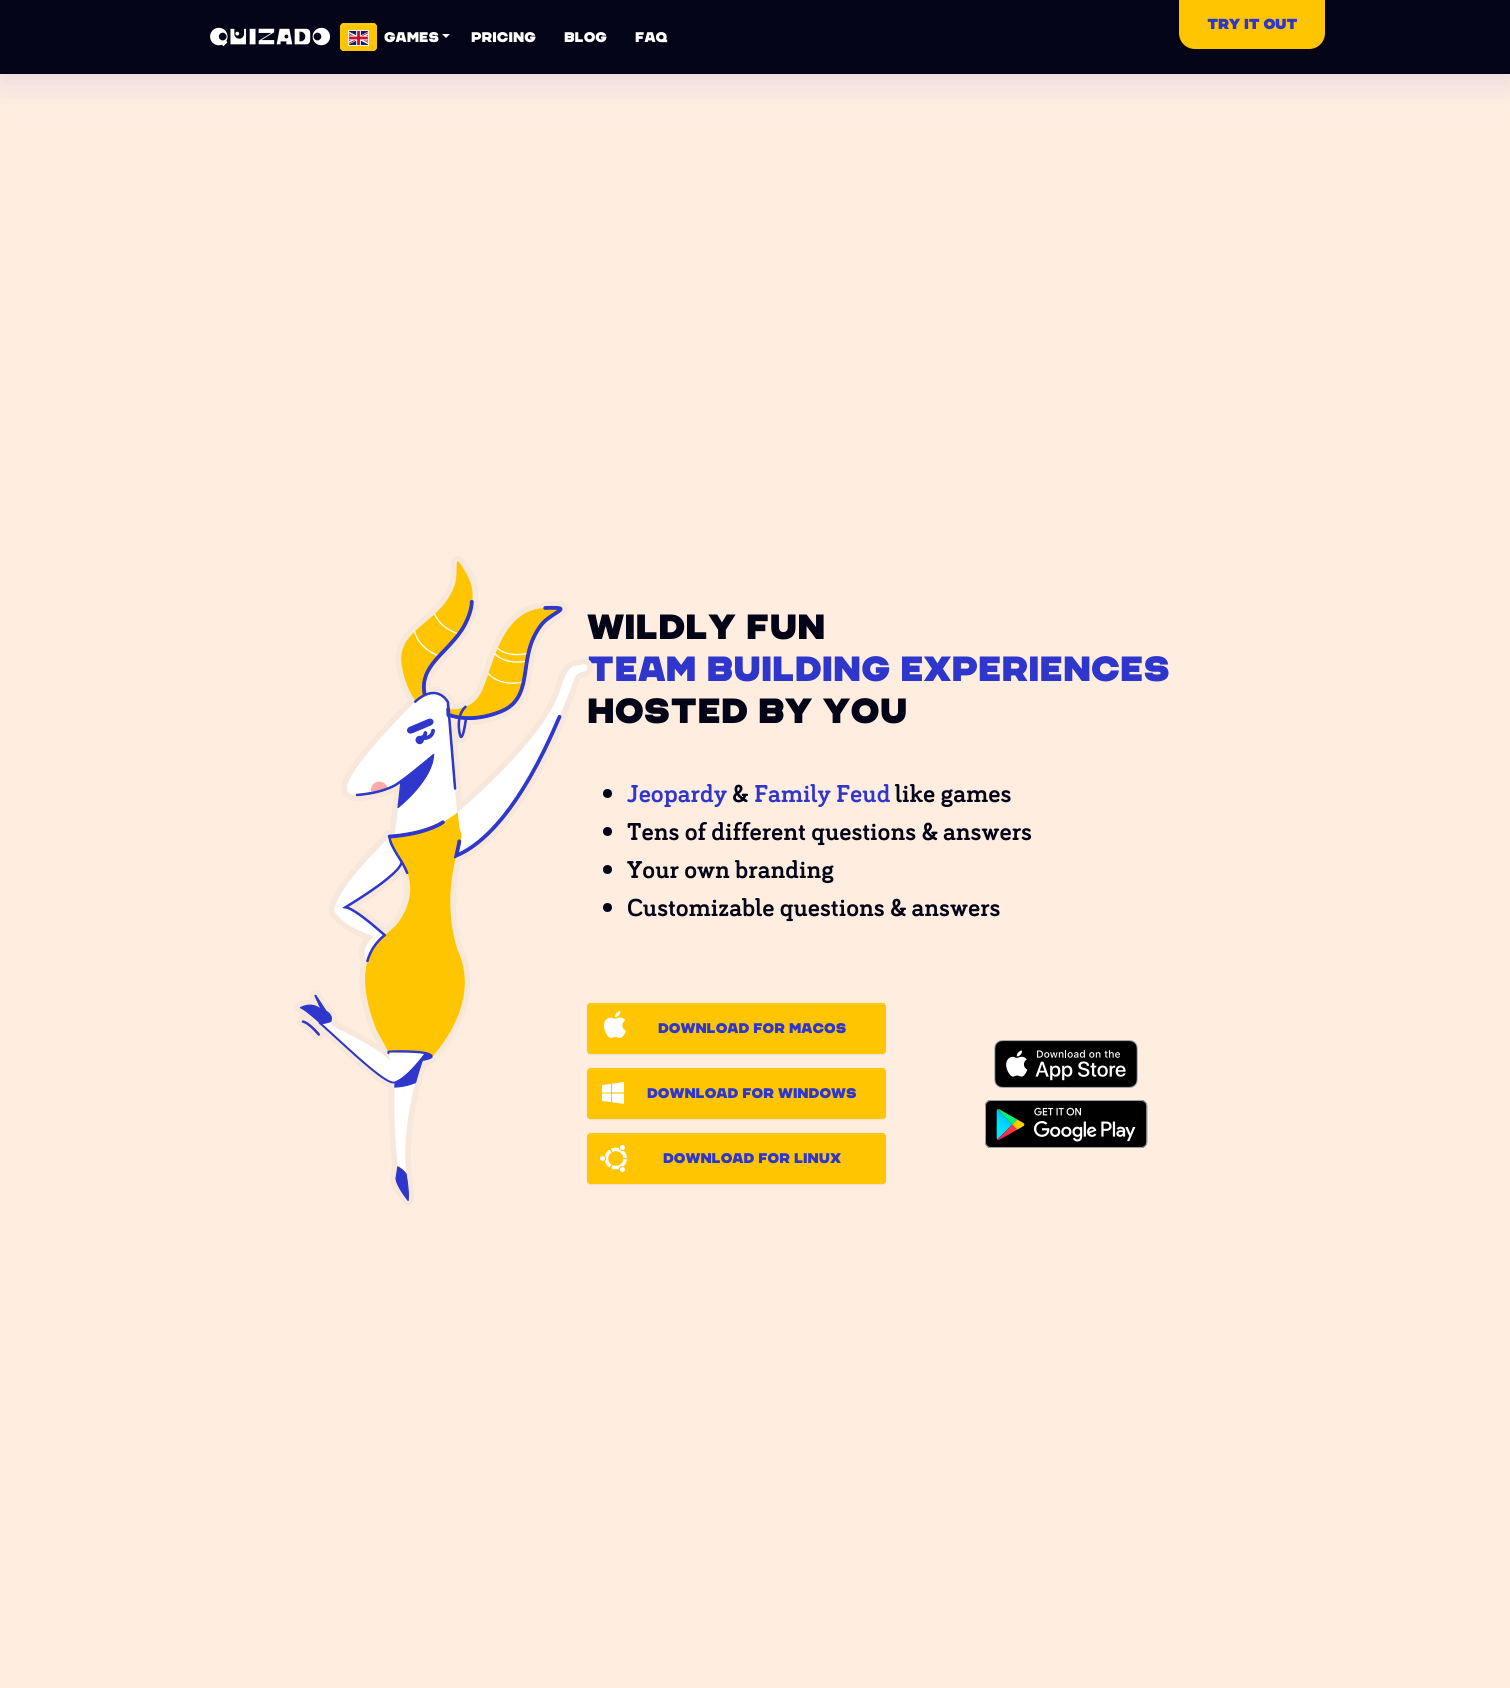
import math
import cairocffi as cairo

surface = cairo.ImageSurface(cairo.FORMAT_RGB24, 1510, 1688)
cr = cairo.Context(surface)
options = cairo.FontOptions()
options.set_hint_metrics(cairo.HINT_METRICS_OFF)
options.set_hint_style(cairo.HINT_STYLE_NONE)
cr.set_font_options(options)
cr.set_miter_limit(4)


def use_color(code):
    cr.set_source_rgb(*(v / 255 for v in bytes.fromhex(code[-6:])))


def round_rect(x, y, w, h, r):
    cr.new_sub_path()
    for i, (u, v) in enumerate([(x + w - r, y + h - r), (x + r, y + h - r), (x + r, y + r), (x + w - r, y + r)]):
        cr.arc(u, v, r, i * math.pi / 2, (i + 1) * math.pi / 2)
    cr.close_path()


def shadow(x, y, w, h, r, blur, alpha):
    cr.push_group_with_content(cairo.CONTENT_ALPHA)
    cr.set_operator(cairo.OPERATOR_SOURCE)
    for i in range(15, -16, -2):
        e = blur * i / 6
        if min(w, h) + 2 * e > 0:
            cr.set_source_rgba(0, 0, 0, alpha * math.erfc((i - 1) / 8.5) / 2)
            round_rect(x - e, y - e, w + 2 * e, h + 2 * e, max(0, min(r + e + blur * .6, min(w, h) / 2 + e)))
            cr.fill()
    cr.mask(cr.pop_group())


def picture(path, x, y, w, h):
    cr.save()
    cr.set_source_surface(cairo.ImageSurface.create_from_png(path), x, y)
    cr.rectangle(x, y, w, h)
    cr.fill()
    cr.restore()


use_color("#ffeee0")
cr.paint()
use_color("#2e36cb")
shadow(0, 8, 1510, 74, 0, 20, 0.12)
use_color("#030417")
cr.rectangle(0, 0, 1510, 74)
cr.fill()
picture("img1.png", 210, 27, 120, 20)
use_color("#ffc500")
round_rect(340, 23, 37, 28, 4)
cr.fill()
use_color("#ffce26")
cr.new_path()
cr.move_to(344, 25)
cr.line_to(374, 25)
cr.curve_to(375, 25, 376, 26, 376, 28)
cr.curve_to(376, 23, 373.5, 24, 368.5, 24)
cr.line_to(348.5, 24)
cr.curve_to(343.5, 24, 341, 23, 341, 28)
cr.curve_to(341, 26, 342, 25, 344, 25)
cr.close_path()
cr.fill()
round_rect(340.5, 23.5, 36, 27, 3.5)
use_color("#ffc500")
cr.set_line_width(1)
cr.stroke()
cr.rectangle(348.5, 30.5, 20, 15)
use_color("#ffeee0")
cr.stroke()
picture("img2.png", 349, 31, 19, 14)
use_color("#ffc500")
cr.new_path()
cr.move_to(1179, 0)
cr.line_to(1325, 0)
cr.line_to(1325, 33)
cr.curve_to(1325, 42, 1318, 49, 1309, 49)
cr.line_to(1195, 49)
cr.curve_to(1186, 49, 1179, 42, 1179, 33)
cr.close_path()
cr.fill()
cr.select_font_face("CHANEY", cairo.FONT_SLANT_NORMAL, cairo.FONT_WEIGHT_BOLD)
cr.set_font_size(14)
use_color("#2e36cb")
cr.move_to(1207, 29)
cr.show_text("Try it out")
cr.select_font_face("CHANEY")
use_color("#ffffff")
cr.move_to(384, 42)
cr.show_text("Games")
cr.new_path()
cr.move_to(442, 34)
cr.line_to(450, 34)
cr.line_to(446, 38)
cr.close_path()
cr.fill()
cr.move_to(471, 42)
cr.show_text("Pricing")
cr.move_to(564, 42)
cr.show_text("Blog")
cr.move_to(635, 42)
cr.show_text("FAQ")
cr.set_font_size(35)
use_color("#030417")
cr.move_to(587, 639)
cr.show_text("Wildly fun")
use_color("#2e36cb")
cr.move_to(587, 681)
cr.show_text("team building experiences")
use_color("#030417")
cr.move_to(587, 723)
cr.show_text("hosted by you")
picture("img3.png", 295, 556, 298, 650)
cr.arc(607.5, 793.5, 4.5, 0, 2 * math.pi)
cr.fill()
cr.select_font_face("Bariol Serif", cairo.FONT_SLANT_NORMAL, cairo.FONT_WEIGHT_BOLD)
cr.set_font_size(25.25)
use_color("#2e36cb")
cr.move_to(627, 802)
cr.show_text("Jeopardy")
use_color("#030417")
cr.move_to(732, 802)
cr.show_text("&")
use_color("#2e36cb")
cr.move_to(754, 802)
cr.show_text("Family Feud")
use_color("#030417")
cr.move_to(895, 802)
cr.show_text("like games")
cr.new_path()
cr.arc(607.5, 831.5, 4.5, 0, 2 * math.pi)
cr.fill()
cr.move_to(627, 840)
cr.show_text("Tens of different questions & answers")
cr.new_path()
cr.arc(607.5, 869.5, 4.5, 0, 2 * math.pi)
cr.fill()
cr.move_to(627, 878)
cr.show_text("Your own branding")
cr.new_path()
cr.arc(607.5, 907.5, 4.5, 0, 2 * math.pi)
cr.fill()
cr.move_to(627, 916)
cr.show_text("Customizable questions & answers")
use_color("#000000")
shadow(587, 1004, 299, 51, 4, 0.5, 0.07)
use_color("#ffc500")
round_rect(587, 1003, 299, 51, 4)
cr.fill()
picture("img4.png", 604, 1011, 22, 27)
use_color("#ffce26")
cr.new_path()
cr.move_to(591, 1005)
cr.line_to(882, 1005)
cr.curve_to(884, 1005, 885, 1006, 885, 1008)
cr.line_to(884, 1005)
cr.line_to(883, 1004)
cr.line_to(591, 1004)
cr.curve_to(589, 1004, 588, 1006, 588, 1008)
cr.curve_to(588, 1006, 589, 1005, 591, 1005)
cr.close_path()
cr.fill()
round_rect(587.5, 1003.5, 298, 50, 3.5)
use_color("#ffc500")
cr.stroke()
cr.select_font_face("CHANEY")
cr.set_font_size(14)
use_color("#2e36cb")
cr.move_to(658, 1033)
cr.show_text("Download for macOS")
use_color("#000000")
shadow(587, 1069, 299, 51, 4, 0.5, 0.07)
use_color("#ffc500")
round_rect(587, 1068, 299, 51, 4)
cr.fill()
picture("img5.png", 602, 1082, 22, 22)
use_color("#ffce26")
cr.new_path()
cr.move_to(591, 1070)
cr.line_to(882, 1070)
cr.curve_to(884, 1070, 885, 1071, 885, 1073)
cr.line_to(884, 1070)
cr.line_to(883, 1069)
cr.line_to(591, 1069)
cr.curve_to(589, 1069, 588, 1071, 588, 1073)
cr.curve_to(588, 1071, 589, 1070, 591, 1070)
cr.close_path()
cr.fill()
round_rect(587.5, 1068.5, 298, 50, 3.5)
use_color("#ffc500")
cr.stroke()
use_color("#2e36cb")
cr.move_to(647, 1098)
cr.show_text("Download for Windows")
use_color("#000000")
shadow(587, 1134, 299, 51, 4, 0.5, 0.07)
use_color("#ffc500")
round_rect(587, 1133, 299, 51, 4)
cr.fill()
picture("img6.png", 600, 1145, 27, 27)
use_color("#ffce26")
cr.new_path()
cr.move_to(591, 1135)
cr.line_to(882, 1135)
cr.curve_to(884, 1135, 885, 1136, 885, 1138)
cr.line_to(884, 1135)
cr.line_to(883, 1134)
cr.line_to(591, 1134)
cr.curve_to(589, 1134, 588, 1136, 588, 1138)
cr.curve_to(588, 1136, 589, 1135, 591, 1135)
cr.close_path()
cr.fill()
round_rect(587.5, 1133.5, 298, 50, 3.5)
use_color("#ffc500")
cr.stroke()
use_color("#2e36cb")
cr.move_to(663, 1163)
cr.show_text("Download for Linux")
picture("img7.png", 994, 1040, 144, 48)
picture("img8.png", 985, 1100, 163, 48)
surface.write_to_png("result.png")
